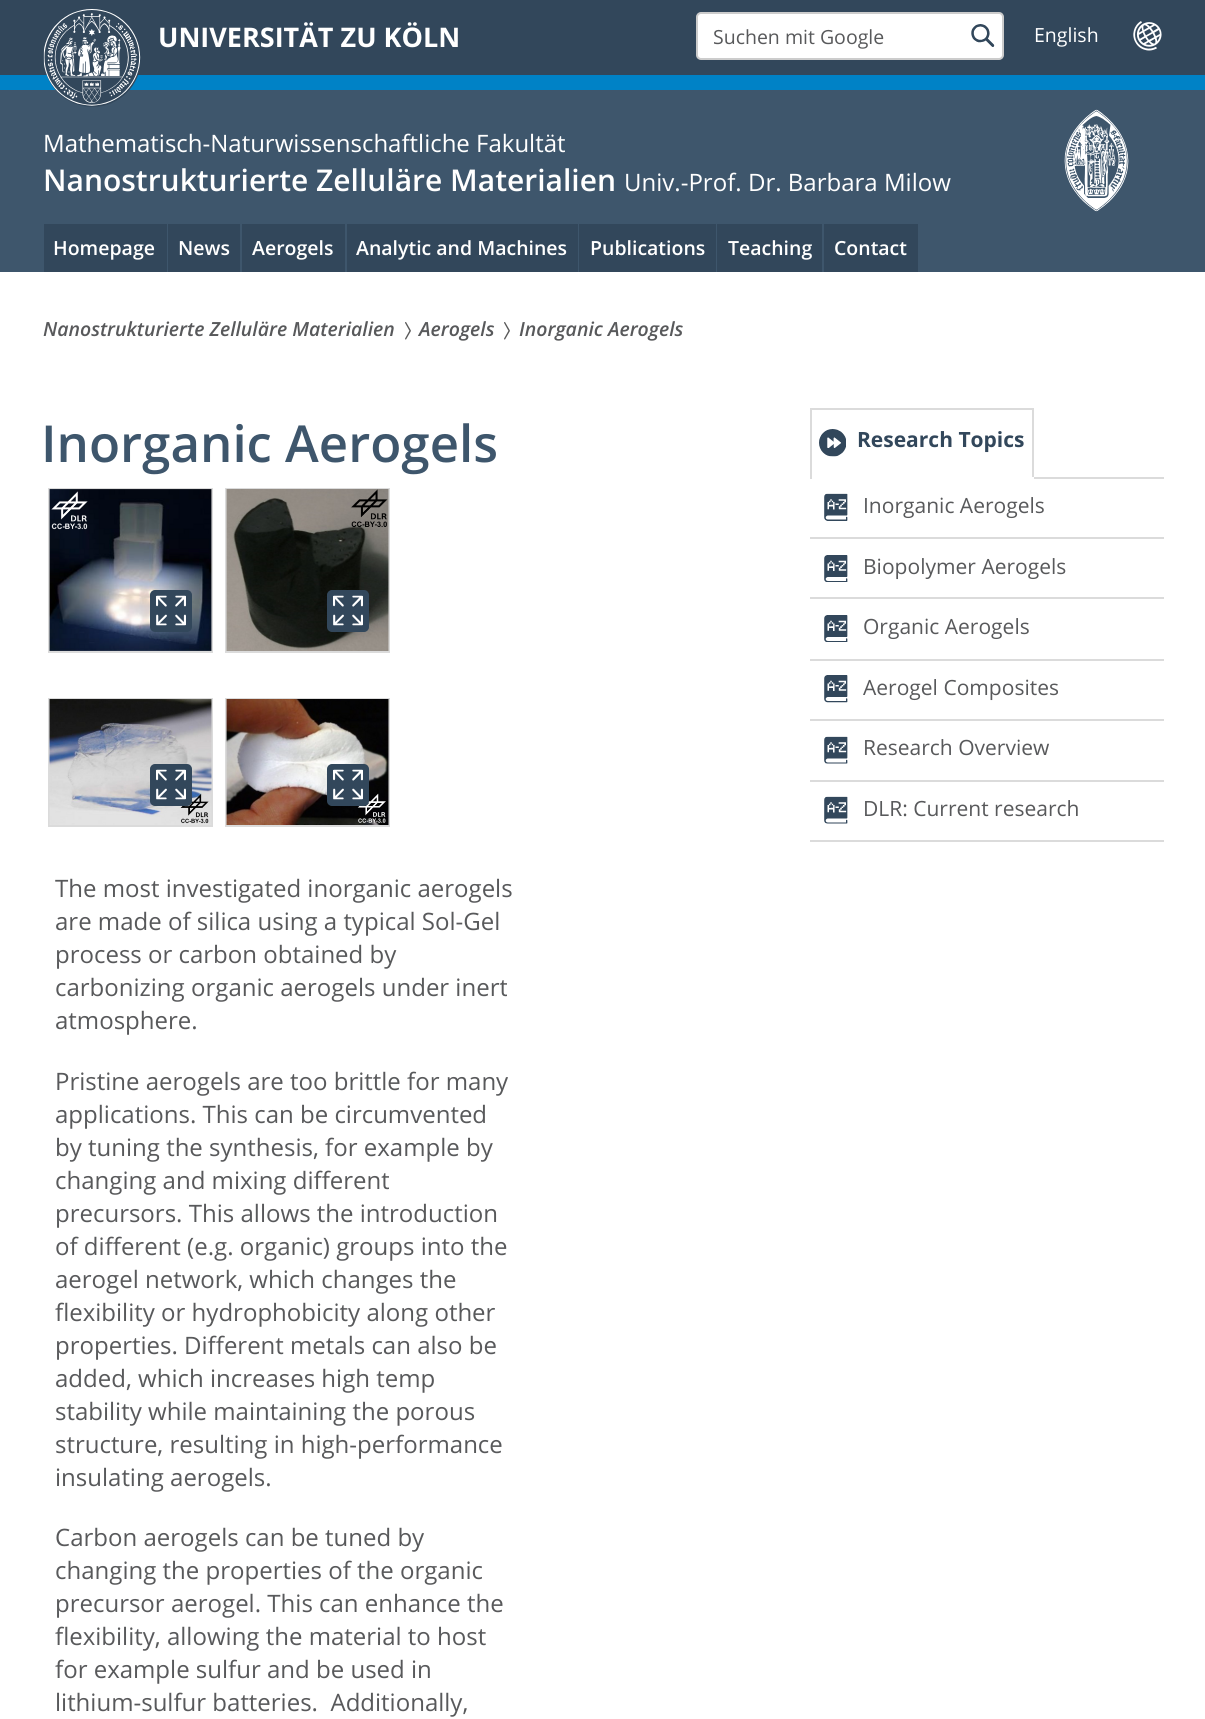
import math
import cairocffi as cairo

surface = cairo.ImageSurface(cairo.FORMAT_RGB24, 1205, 1719)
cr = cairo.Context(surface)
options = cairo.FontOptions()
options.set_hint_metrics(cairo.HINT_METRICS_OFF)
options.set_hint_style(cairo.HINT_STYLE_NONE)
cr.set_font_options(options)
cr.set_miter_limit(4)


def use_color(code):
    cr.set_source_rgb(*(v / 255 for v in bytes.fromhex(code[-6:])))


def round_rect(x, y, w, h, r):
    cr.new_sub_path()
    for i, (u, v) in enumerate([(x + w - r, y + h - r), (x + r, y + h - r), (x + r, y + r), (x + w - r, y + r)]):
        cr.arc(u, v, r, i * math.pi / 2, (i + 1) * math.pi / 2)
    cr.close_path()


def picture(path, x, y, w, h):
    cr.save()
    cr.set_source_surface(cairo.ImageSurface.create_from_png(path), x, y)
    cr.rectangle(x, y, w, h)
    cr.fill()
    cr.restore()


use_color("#ffffff")
cr.paint()
use_color("#3e566c")
cr.rectangle(0, 90, 1205, 182)
cr.fill()
use_color("#32475b")
cr.rectangle(0, 0, 1205, 75)
cr.fill()
use_color("#0082c6")
cr.rectangle(0, 75, 1205, 15)
cr.fill()
use_color("#32475b")
round_rect(44, 9, 97, 98, 48.5)
cr.fill()
picture("img1.png", 43, 9, 98, 97)
cr.select_font_face("Open Sans", cairo.FONT_SLANT_NORMAL, cairo.FONT_WEIGHT_BOLD)
cr.set_font_size(27)
use_color("#ffffff")
cr.move_to(158, 47)
cr.show_text("UNIVERSITÄT ZU KÖLN")
round_rect(697, 13, 306, 46, 4)
cr.fill_preserve()
use_color("#cccccc")
cr.stroke()
cr.select_font_face("Open Sans")
cr.set_font_size(19.5)
use_color("#58595b")
cr.move_to(713, 44)
cr.show_text("Suchen mit Google")
picture("img2.png", 971, 24, 24, 23)
use_color("#ffffff")
cr.move_to(1034, 42)
cr.show_text("English")
picture("img3.png", 1133, 21, 29, 30)
cr.set_font_size(24)
cr.move_to(43, 152)
cr.show_text("Mathematisch-Naturwissenschaftliche Fakultät")
cr.select_font_face("Open Sans SemiBold")
cr.set_font_size(30)
cr.move_to(43, 191)
cr.show_text("Nanostrukturierte Zelluläre Materialien")
cr.select_font_face("Open Sans")
cr.set_font_size(24)
cr.move_to(624, 191)
cr.show_text("Univ.-Prof. Dr. Barbara Milow")
picture("img4.png", 1064, 109, 65, 103)
use_color("#32475b")
cr.rectangle(44, 224, 123, 48)
cr.fill()
cr.select_font_face("Open Sans SemiBold")
cr.set_font_size(19.5)
use_color("#ffffff")
cr.move_to(53, 255)
cr.show_text("Homepage")
use_color("#32475b")
cr.rectangle(168, 224, 72, 48)
cr.fill()
use_color("#ffffff")
cr.move_to(178, 255)
cr.show_text("News")
use_color("#32475b")
cr.rectangle(242, 224, 103, 48)
cr.fill()
use_color("#ffffff")
cr.move_to(252, 255)
cr.show_text("Aerogels")
use_color("#32475b")
cr.rectangle(347, 224, 231, 48)
cr.fill()
use_color("#ffffff")
cr.move_to(356, 255)
cr.show_text("Analytic and Machines")
use_color("#32475b")
cr.rectangle(579, 224, 137, 48)
cr.fill()
use_color("#ffffff")
cr.move_to(590, 255)
cr.show_text("Publications")
use_color("#32475b")
cr.rectangle(717, 224, 105, 48)
cr.fill()
use_color("#ffffff")
cr.move_to(728, 255)
cr.show_text("Teaching")
use_color("#32475b")
cr.rectangle(824, 224, 94, 48)
cr.fill()
use_color("#ffffff")
cr.move_to(834, 255)
cr.show_text("Contact")
cr.select_font_face("Open Sans SemiBold", cairo.FONT_SLANT_ITALIC)
use_color("#58595b")
cr.move_to(43, 336)
cr.show_text("Nanostrukturierte Zelluläre Materialien")
picture("img5.png", 405, 322, 6, 18)
cr.move_to(419, 336)
cr.show_text("Aerogels")
picture("img5.png", 504, 322, 6, 18)
cr.move_to(519, 336)
cr.show_text("Inorganic Aerogels")
cr.select_font_face("Open Sans SemiBold")
cr.set_font_size(51)
use_color("#3e566c")
cr.move_to(41, 462)
cr.show_text("Inorganic Aerogels")
cr.rectangle(49, 489, 163, 163)
use_color("#dbdbdb")
cr.stroke()
picture("img6.png", 49, 489, 163, 162)
use_color("#32475b")
round_rect(151, 591, 40, 40, 4)
cr.fill_preserve()
cr.stroke()
picture("img7.png", 156, 595, 30, 31)
cr.rectangle(226, 489, 163, 163)
use_color("#dbdbdb")
cr.stroke()
picture("img8.png", 226, 489, 163, 162)
use_color("#32475b")
round_rect(328, 591, 40, 40, 4)
cr.fill_preserve()
cr.stroke()
picture("img7.png", 333, 595, 30, 31)
cr.rectangle(49, 699, 163, 127)
use_color("#dbdbdb")
cr.stroke()
picture("img9.png", 49, 699, 163, 126)
use_color("#32475b")
round_rect(151, 765, 40, 40, 4)
cr.fill_preserve()
cr.stroke()
picture("img7.png", 156, 769, 30, 31)
cr.rectangle(226, 699, 163, 127)
use_color("#dbdbdb")
cr.stroke()
picture("img10.png", 226, 699, 163, 126)
use_color("#32475b")
round_rect(328, 765, 40, 40, 4)
cr.fill_preserve()
cr.stroke()
picture("img7.png", 333, 769, 30, 31)
cr.select_font_face("Open Sans")
cr.set_font_size(24)
use_color("#58595b")
cr.move_to(55, 897)
cr.show_text("The most investigated inorganic aerogels")
cr.move_to(55, 930)
cr.show_text("are made of silica using a typical Sol-Gel")
cr.move_to(55, 963)
cr.show_text("process or carbon obtained by")
cr.move_to(55, 996)
cr.show_text("carbonizing organic aerogels under inert")
cr.move_to(55, 1029)
cr.show_text("atmosphere.")
cr.move_to(55, 1090)
cr.show_text("Pristine aerogels are too brittle for many")
cr.move_to(55, 1123)
cr.show_text("applications. This can be circumvented")
cr.move_to(55, 1156)
cr.show_text("by tuning the synthesis, for example by")
cr.move_to(55, 1189)
cr.show_text("changing and mixing different")
cr.move_to(55, 1222)
cr.show_text("precursors. This allows the introduction")
cr.move_to(55, 1255)
cr.show_text("of different (e.g. organic) groups into the")
cr.move_to(55, 1288)
cr.show_text("aerogel network, which changes the")
cr.move_to(55, 1321)
cr.show_text("flexibility or hydrophobicity along other")
cr.move_to(55, 1354)
cr.show_text("properties. Different metals can also be")
cr.move_to(55, 1387)
cr.show_text("added, which increases high temp")
cr.move_to(55, 1420)
cr.show_text("stability while maintaining the porous")
cr.move_to(55, 1453)
cr.show_text("structure, resulting in high-performance")
cr.move_to(55, 1486)
cr.show_text("insulating aerogels.")
cr.move_to(55, 1546)
cr.show_text("Carbon aerogels can be tuned by")
cr.move_to(55, 1579)
cr.show_text("changing the properties of the organic")
cr.move_to(55, 1612)
cr.show_text("precursor aerogel. This can enhance the")
cr.move_to(55, 1645)
cr.show_text("flexibility, allowing the material to host")
cr.move_to(55, 1678)
cr.show_text("for example sulfur and be used in")
cr.move_to(55, 1711)
cr.show_text("lithium-sulfur batteries.  Additionally,")
use_color("#dbdbdb")
cr.rectangle(810, 408, 224, 2)
cr.fill()
cr.rectangle(1032, 408, 2, 71)
cr.fill()
use_color("#ffffff")
cr.rectangle(1032, 477, 2, 2)
cr.fill()
use_color("#dbdbdb")
cr.rectangle(810, 408, 2, 71)
cr.fill()
picture("img11.png", 819, 429, 27, 28)
cr.select_font_face("Open Sans", cairo.FONT_SLANT_NORMAL, cairo.FONT_WEIGHT_BOLD)
cr.set_font_size(21)
use_color("#32475b")
cr.move_to(857, 447)
cr.show_text("Research Topics")
use_color("#dbdbdb")
cr.rectangle(1034, 477, 130, 2)
cr.fill()
cr.rectangle(810, 537, 354, 2)
cr.fill()
picture("img12.png", 824, 493, 24, 28)
cr.select_font_face("Open Sans")
use_color("#58595b")
cr.move_to(863, 513)
cr.show_text("Inorganic Aerogels")
use_color("#dbdbdb")
cr.rectangle(810, 597, 354, 2)
cr.fill()
picture("img13.png", 824, 555, 24, 27)
use_color("#58595b")
cr.move_to(863, 574)
cr.show_text("Biopolymer Aerogels")
use_color("#dbdbdb")
cr.rectangle(810, 659, 354, 2)
cr.fill()
picture("img13.png", 824, 615, 24, 27)
use_color("#58595b")
cr.move_to(863, 634)
cr.show_text("Organic Aerogels")
use_color("#dbdbdb")
cr.rectangle(810, 719, 354, 2)
cr.fill()
picture("img14.png", 824, 675, 24, 28)
use_color("#58595b")
cr.move_to(863, 695)
cr.show_text("Aerogel Composites")
use_color("#dbdbdb")
cr.rectangle(810, 780, 354, 2)
cr.fill()
picture("img15.png", 824, 736, 24, 28)
use_color("#58595b")
cr.move_to(863, 755)
cr.show_text("Research Overview")
use_color("#dbdbdb")
cr.rectangle(810, 840, 354, 2)
cr.fill()
picture("img16.png", 824, 796, 24, 28)
use_color("#58595b")
cr.move_to(863, 816)
cr.show_text("DLR: Current research")
surface.write_to_png("result.png")
